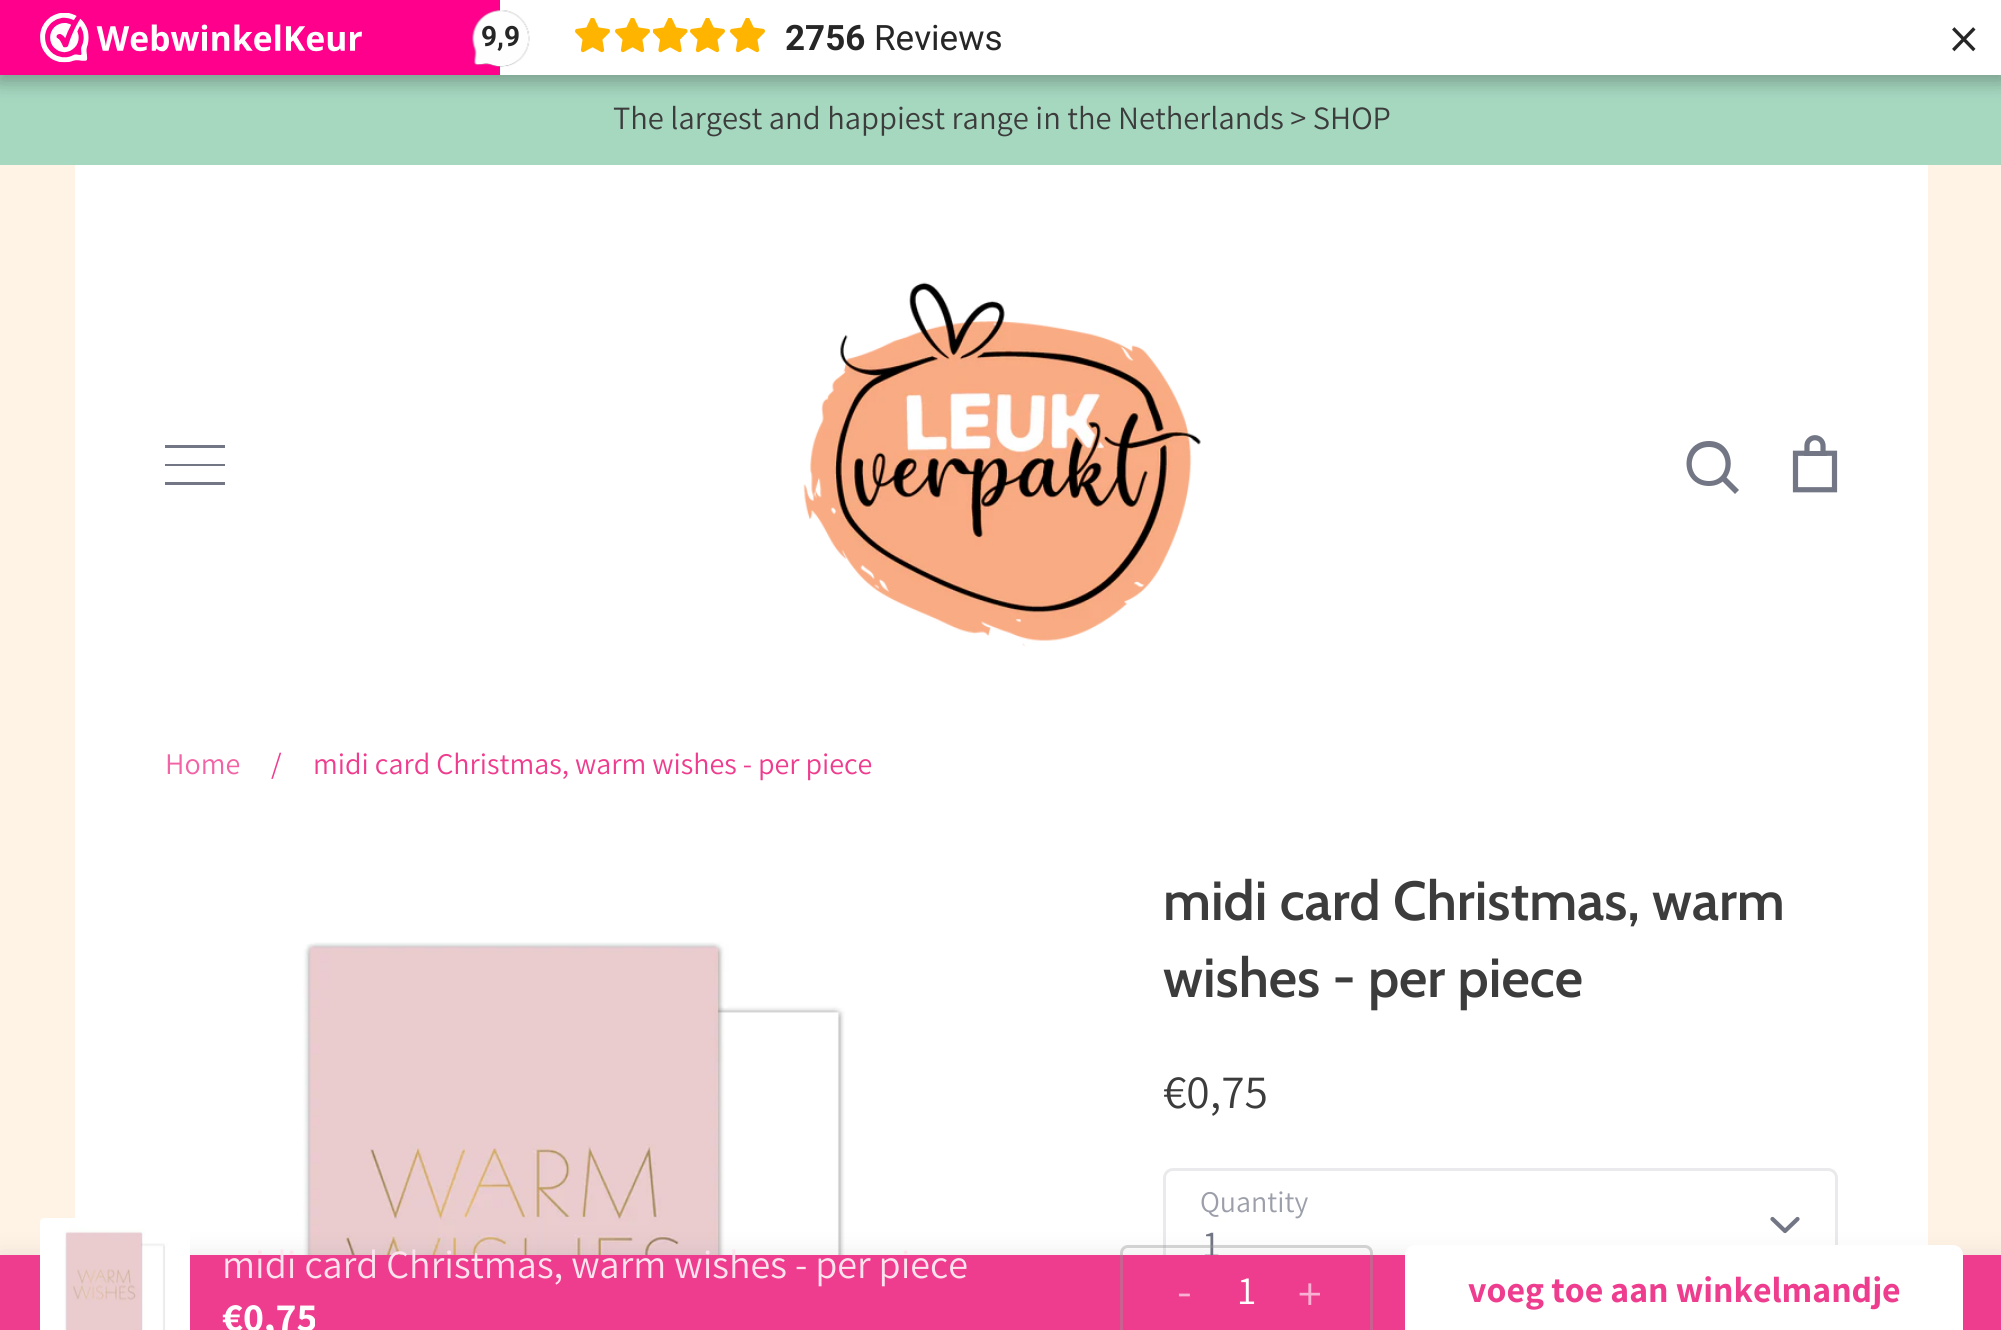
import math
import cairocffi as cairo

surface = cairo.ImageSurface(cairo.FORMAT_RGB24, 2001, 1330)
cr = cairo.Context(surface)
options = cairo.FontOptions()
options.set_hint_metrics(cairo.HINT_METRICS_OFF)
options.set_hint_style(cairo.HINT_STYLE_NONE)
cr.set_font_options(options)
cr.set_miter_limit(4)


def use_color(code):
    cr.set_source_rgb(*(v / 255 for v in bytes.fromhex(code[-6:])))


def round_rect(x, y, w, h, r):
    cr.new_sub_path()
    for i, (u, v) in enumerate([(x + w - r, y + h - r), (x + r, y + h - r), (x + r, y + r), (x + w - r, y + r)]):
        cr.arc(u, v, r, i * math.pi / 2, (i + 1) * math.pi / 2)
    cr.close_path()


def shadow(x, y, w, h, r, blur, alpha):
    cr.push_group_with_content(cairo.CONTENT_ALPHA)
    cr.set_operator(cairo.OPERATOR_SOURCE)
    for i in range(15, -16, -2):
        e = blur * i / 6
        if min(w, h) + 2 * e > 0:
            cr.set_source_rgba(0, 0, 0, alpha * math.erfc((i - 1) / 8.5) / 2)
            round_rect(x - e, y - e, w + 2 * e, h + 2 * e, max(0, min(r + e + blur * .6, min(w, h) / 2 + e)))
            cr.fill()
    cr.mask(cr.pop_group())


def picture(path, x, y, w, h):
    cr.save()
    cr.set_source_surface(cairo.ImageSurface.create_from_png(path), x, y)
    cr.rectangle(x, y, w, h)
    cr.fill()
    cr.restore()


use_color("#fff3e6")
cr.paint()
use_color("#a6d8c0")
cr.rectangle(0, 75, 2001, 90)
cr.fill()
use_color("#000000")
shadow(-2, -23, 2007, 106, 0, 7.5, 0.15)
shadow(0, 5, 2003, 75, 0, 12.5, 0.15)
use_color("#fe008c")
cr.rectangle(0, 0, 500, 75)
cr.fill()
picture("img1.png", 40, 13, 322, 50)
use_color("#ffffff")
cr.rectangle(500, 0, 1501, 75)
cr.fill()
picture("img2.png", 472, 10, 58, 57)
cr.select_font_face("Roboto", cairo.FONT_SLANT_NORMAL, cairo.FONT_WEIGHT_BOLD)
cr.set_font_size(28)
use_color("#272626")
cr.move_to(481, 46)
cr.show_text("9,9")
picture("img3.png", 575, 18, 35, 35)
picture("img3.png", 615, 18, 35, 35)
picture("img4.png", 653, 18, 35, 35)
picture("img3.png", 690, 18, 35, 35)
picture("img3.png", 730, 18, 35, 35)
cr.set_font_size(35)
cr.move_to(785, 50)
cr.show_text("2756")
cr.select_font_face("Roboto")
cr.move_to(874, 50)
cr.show_text("Reviews")
cr.select_font_face("Assistant")
cr.set_font_size(60)
cr.move_to(1949, 59)
cr.show_text("×")
cr.set_font_size(32.5)
use_color("#3c3c3c")
cr.move_to(613, 129)
cr.show_text("The largest and happiest range in the Netherlands > SHOP")
use_color("#ffffff")
cr.rectangle(75, 165, 1853, 1090)
cr.fill()
use_color("#727685")
cr.rectangle(165, 445, 60, 3)
cr.fill()
cr.rectangle(165, 464, 60, 2)
cr.fill()
cr.rectangle(165, 482, 60, 3)
cr.fill()
picture("img5.png", 803, 282, 398, 365)
cr.new_path()
cr.move_to(1739, 490)
cr.line_to(1735, 494)
cr.line_to(1722, 481)
cr.line_to(1726, 477)
cr.close_path()
cr.fill()
cr.new_path()
cr.move_to(1709, 486)
cr.curve_to(1679, 486, 1679, 441, 1709, 441)
cr.curve_to(1738, 441, 1738, 486, 1709, 486)
cr.close_path()
cr.move_to(1709, 481)
cr.curve_to(1731, 481, 1731, 447, 1709, 447)
cr.curve_to(1686, 447, 1686, 481, 1709, 481)
cr.close_path()
cr.fill()
picture("img6.png", 1792, 435, 46, 58)
cr.set_font_size(30)
use_color("#f164a5")
cr.move_to(165, 774)
cr.show_text("Home")
use_color("#ee3d8e")
cr.move_to(271, 774)
cr.show_text("/")
cr.move_to(313, 774)
cr.show_text("midi card Christmas, warm wishes - per piece")
picture("img7.png", 303, 942, 542, 313)
cr.select_font_face("Cabin SemiBold")
cr.set_font_size(55)
use_color("#3c3c3c")
cr.move_to(1163, 920)
cr.show_text("midi card Christmas, warm")
cr.move_to(1163, 997)
cr.show_text("wishes - per piece")
cr.select_font_face("Assistant")
cr.set_font_size(47.5)
cr.move_to(1163, 1108)
cr.show_text("€0,75")
cr.set_font_size(30)
use_color("#9c9faa")
cr.move_to(1200, 1212)
cr.show_text("Quantity")
round_rect(1164.5, 1169.5, 672, 112, 8.5)
use_color("#eaeaed")
cr.set_line_width(3)
cr.stroke()
cr.new_path()
cr.move_to(1772.5, 1219)
cr.line_to(1785, 1231)
cr.line_to(1797.5, 1219)
use_color("#727685")
cr.set_line_width(4.2)
cr.set_line_cap(cairo.LINE_CAP_ROUND)
cr.set_line_join(cairo.LINE_JOIN_ROUND)
cr.stroke()
cr.set_font_size(38)
cr.move_to(1203, 1257)
cr.show_text("1")
use_color("#000000")
shadow(0, 1255, 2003, 75, 0, 12.5, 0.09)
use_color("#ee3d8e")
cr.rectangle(0, 1255, 2001, 75)
cr.fill()
picture("img8.png", 40, 1218, 150, 112)
cr.set_font_size(40)
use_color("#fce3ee")
cr.move_to(222, 1278)
cr.show_text("midi card Christmas, warm wishes - per piece")
cr.select_font_face("Assistant", cairo.FONT_SLANT_NORMAL, cairo.FONT_WEIGHT_BOLD)
use_color("#ffffff")
cr.move_to(222, 1331)
cr.show_text("€0,75")
round_rect(1121.5, 1246.5, 250, 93, 6.5)
cr.set_source_rgba(0.588, 0.588, 0.588, 0.4)
cr.set_line_width(3)
cr.set_line_cap(cairo.LINE_CAP_BUTT)
cr.set_line_join(cairo.LINE_JOIN_MITER)
cr.stroke()
cr.select_font_face("Assistant")
cr.set_font_size(48)
use_color("#f8b1d2")
cr.move_to(1177, 1307)
cr.show_text("-")
cr.set_font_size(40)
use_color("#ffffff")
cr.move_to(1238, 1304)
cr.show_text("1")
cr.set_font_size(48)
use_color("#f8b1d2")
cr.move_to(1298, 1310)
cr.show_text("+")
use_color("#ffffff")
round_rect(1405, 1245, 558, 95, 10)
cr.fill()
cr.select_font_face("Assistant", cairo.FONT_SLANT_NORMAL, cairo.FONT_WEIGHT_BOLD)
cr.set_font_size(36)
use_color("#ee3d8e")
cr.move_to(1468, 1302)
cr.show_text("voeg toe aan winkelmandje")
surface.write_to_png("result.png")
